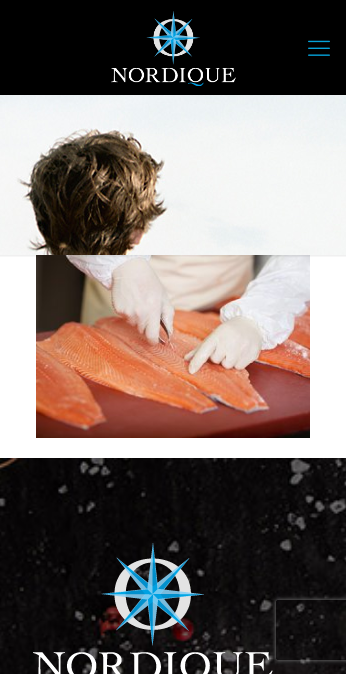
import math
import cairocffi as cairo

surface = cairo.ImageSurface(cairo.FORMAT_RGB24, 346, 674)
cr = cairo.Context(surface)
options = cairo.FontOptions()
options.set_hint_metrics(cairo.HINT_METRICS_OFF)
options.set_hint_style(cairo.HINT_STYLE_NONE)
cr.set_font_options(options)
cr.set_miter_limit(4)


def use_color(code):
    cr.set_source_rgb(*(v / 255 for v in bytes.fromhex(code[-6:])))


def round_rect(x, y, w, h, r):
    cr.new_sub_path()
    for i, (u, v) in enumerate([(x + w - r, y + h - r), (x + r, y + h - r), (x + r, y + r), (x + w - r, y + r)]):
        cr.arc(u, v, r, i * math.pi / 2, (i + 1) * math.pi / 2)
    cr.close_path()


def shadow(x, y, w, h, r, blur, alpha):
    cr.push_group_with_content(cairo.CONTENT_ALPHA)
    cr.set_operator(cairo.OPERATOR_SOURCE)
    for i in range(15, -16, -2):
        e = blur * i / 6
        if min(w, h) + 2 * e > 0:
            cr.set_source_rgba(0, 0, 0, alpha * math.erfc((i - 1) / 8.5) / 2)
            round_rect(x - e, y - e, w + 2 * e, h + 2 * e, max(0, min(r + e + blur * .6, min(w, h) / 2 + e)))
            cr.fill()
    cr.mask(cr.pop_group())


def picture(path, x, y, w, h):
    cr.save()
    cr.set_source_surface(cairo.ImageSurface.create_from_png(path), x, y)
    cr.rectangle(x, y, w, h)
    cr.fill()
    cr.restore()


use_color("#ffffff")
cr.paint()
picture("img1.png", 0, 95, 346, 160)
use_color("#000000")
cr.rectangle(0, 0, 346, 95)
cr.fill()
picture("img2.png", 111, 11, 125, 75)
picture("img3.png", 308, 40, 22, 16)
picture("img5.png", 36, 255, 274, 183)
picture("img4.png", 0, 255, 346, 2)
picture("img6.png", 0, 458, 346, 216)
picture("img7.png", 33, 543, 240, 131)
cr.save()
cr.set_fill_rule(cairo.FILL_RULE_EVEN_ODD)
cr.new_path()
cr.move_to(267, 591)
cr.line_to(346, 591)
cr.line_to(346, 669)
cr.line_to(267, 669)
cr.close_path()
cr.move_to(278, 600)
cr.line_to(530, 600)
cr.curve_to(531, 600, 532, 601, 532, 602)
cr.line_to(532, 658)
cr.curve_to(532, 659, 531, 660, 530, 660)
cr.line_to(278, 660)
cr.curve_to(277, 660, 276, 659, 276, 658)
cr.line_to(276, 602)
cr.curve_to(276, 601, 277, 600, 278, 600)
cr.close_path()
cr.clip()
use_color("#808080")
shadow(276, 600, 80, 60, 2, 2.5, 1)
cr.restore()
surface.write_to_png("result.png")
